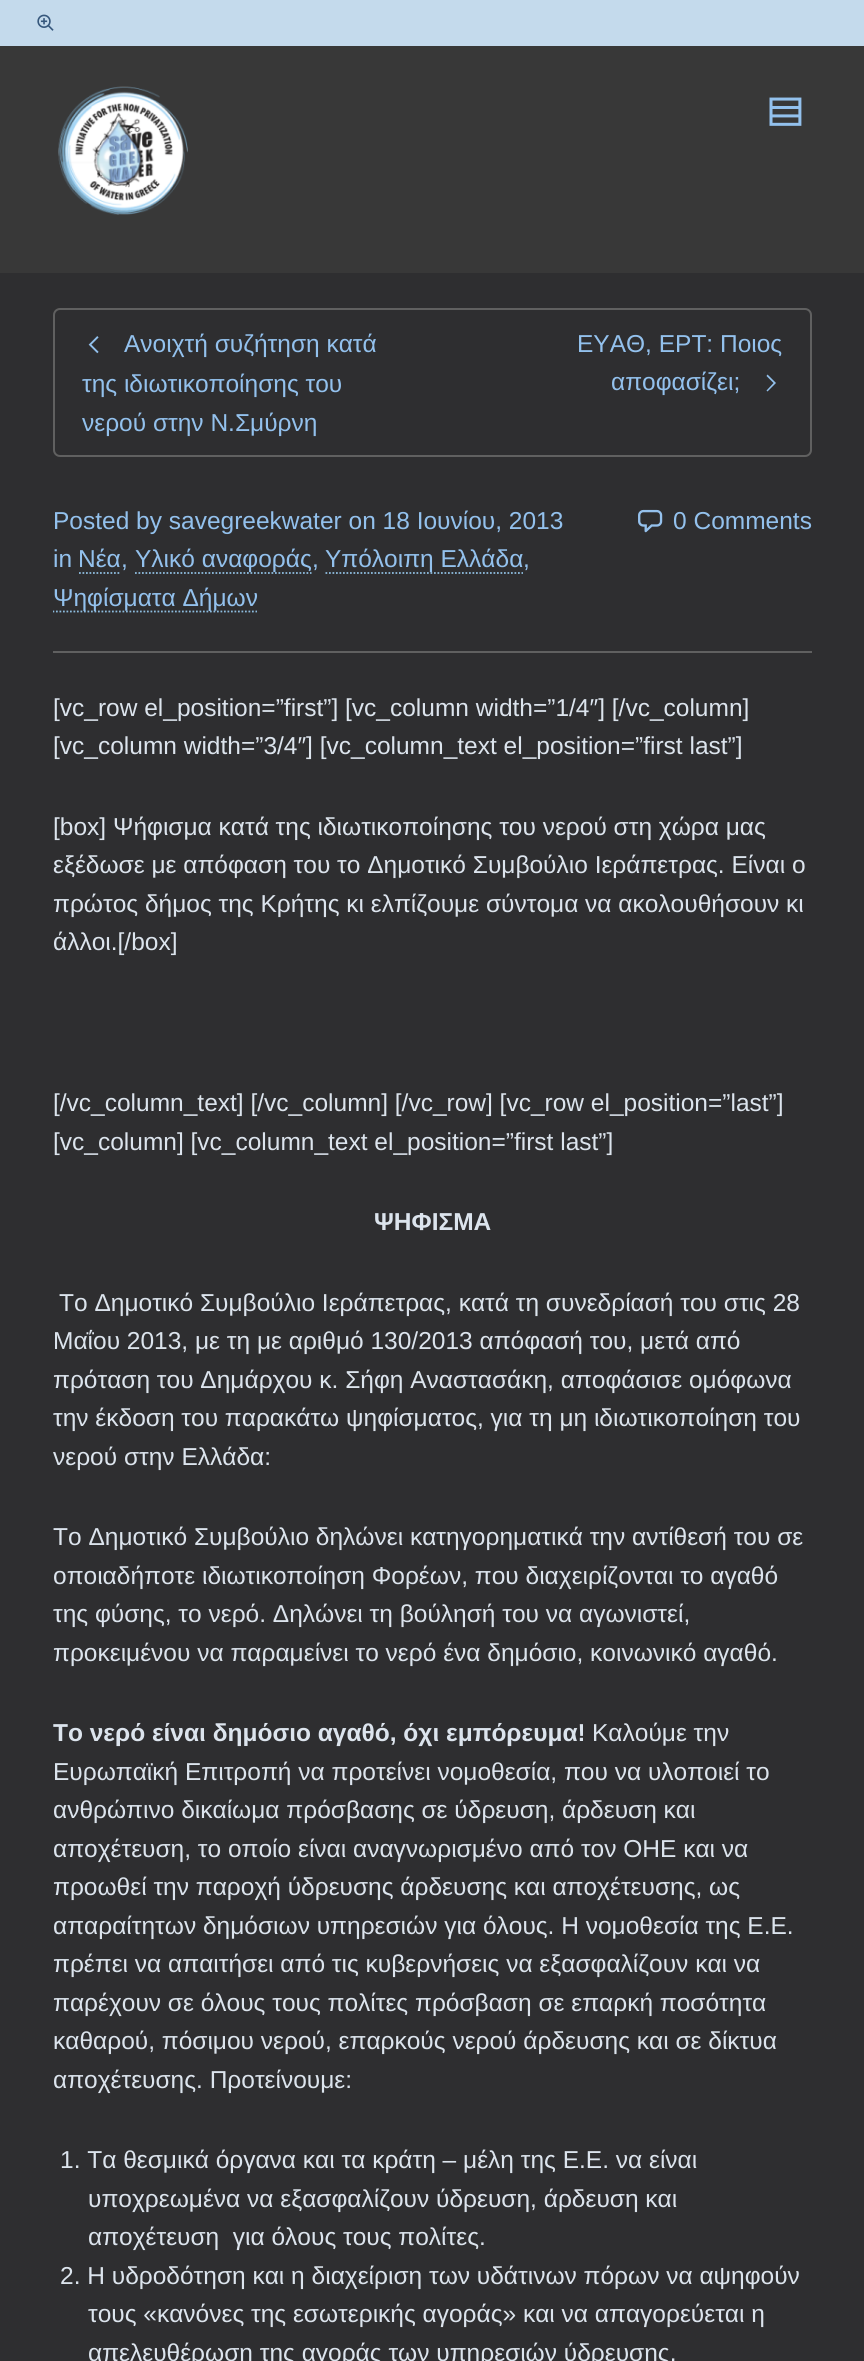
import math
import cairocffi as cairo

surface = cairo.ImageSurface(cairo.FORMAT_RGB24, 864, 2361)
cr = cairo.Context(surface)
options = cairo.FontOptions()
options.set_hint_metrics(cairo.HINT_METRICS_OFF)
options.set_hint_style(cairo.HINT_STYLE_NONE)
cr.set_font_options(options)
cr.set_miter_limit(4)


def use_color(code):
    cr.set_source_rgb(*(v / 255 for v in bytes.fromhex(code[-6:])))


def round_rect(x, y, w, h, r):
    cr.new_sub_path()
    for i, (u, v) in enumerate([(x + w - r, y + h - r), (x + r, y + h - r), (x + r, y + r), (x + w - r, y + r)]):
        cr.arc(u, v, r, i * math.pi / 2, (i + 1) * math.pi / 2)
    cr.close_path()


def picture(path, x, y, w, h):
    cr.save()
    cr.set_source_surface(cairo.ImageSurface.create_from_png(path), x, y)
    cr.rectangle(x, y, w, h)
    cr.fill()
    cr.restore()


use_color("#2e2e30")
cr.paint()
use_color("#c4daec")
cr.rectangle(0, 0, 864, 46)
cr.fill()
picture("img1.png", 37, 14, 17, 17)
use_color("#383838")
cr.rectangle(0, 46, 864, 227)
cr.fill()
picture("img2.png", 58, 86, 130, 129)
picture("img3.png", 769, 97, 33, 29)
round_rect(54, 309, 757, 147, 6)
use_color("#606060")
cr.stroke()
picture("img4.png", 88, 336, 11, 18)
cr.select_font_face("Liberation Sans")
cr.set_font_size(24.5)
use_color("#93c1ed")
cr.move_to(124, 352)
cr.show_text("Ανοιχτή συζήτηση κατά")
cr.move_to(82, 392)
cr.show_text("της ιδιωτικοποίησης του")
cr.move_to(82, 431)
cr.show_text("νερού στην Ν.Σμύρνη")
cr.move_to(577, 352)
cr.show_text("ΕΥΑΘ, ΕΡΤ: Ποιος")
cr.move_to(611, 390)
cr.show_text("αποφασίζει;")
cr.new_path()
cr.move_to(767.5, 391.5)
cr.line_to(766.5, 390.5)
cr.line_to(773.5, 383)
cr.line_to(766.5, 376)
cr.line_to(767.5, 374.5)
cr.line_to(776, 383)
cr.close_path()
cr.fill()
use_color("#606060")
cr.rectangle(53, 651, 759, 2)
cr.fill()
use_color("#93c1ed")
cr.move_to(53, 529)
cr.show_text("Posted by savegreekwater on 18 Ιουνίου, 2013")
cr.move_to(53, 567)
cr.show_text("in")
cr.move_to(78, 567)
cr.show_text("Νέα")
cr.new_path()
cr.move_to(79, 573)
cr.line_to(121, 573)
use_color("#8dbbdd")
cr.set_line_width(1.8)
cr.set_dash([1.75, 1.75])
cr.stroke()
use_color("#93c1ed")
cr.move_to(121, 567)
cr.show_text(",")
cr.new_path()
cr.move_to(135, 573)
cr.line_to(311.5, 573)
use_color("#8dbbdd")
cr.stroke()
use_color("#93c1ed")
cr.move_to(135, 567)
cr.show_text("Υλικό αναφοράς")
cr.move_to(312, 567)
cr.show_text(",")
cr.new_path()
cr.move_to(325.5, 573)
cr.line_to(523, 573)
use_color("#8dbbdd")
cr.stroke()
use_color("#93c1ed")
cr.move_to(325, 567)
cr.show_text("Υπόλοιπη Ελλάδα")
cr.move_to(523, 567)
cr.show_text(",")
cr.save()
cr.rectangle(53, 273, 759, 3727)
cr.clip()
cr.new_path()
cr.move_to(52.5, 611.5)
cr.line_to(257, 611.5)
use_color("#8dbbdd")
cr.stroke()
cr.restore()
cr.move_to(53, 606)
cr.show_text("Ψηφίσματα Δήμων")
picture("img5.png", 638, 509, 25, 24)
cr.move_to(673, 529)
cr.show_text("0 Comments")
use_color("#dce4ed")
cr.move_to(53, 716)
cr.show_text("[vc_row el_position=”first”] [vc_column width=”1/4″] [/vc_column]")
cr.move_to(53, 754)
cr.show_text("[vc_column width=”3/4″] [vc_column_text el_position=”first last”]")
cr.move_to(53, 835)
cr.show_text("[box] Ψήφισμα κατά της ιδιωτικοποίησης του νερού στη χώρα μας")
cr.move_to(53, 873)
cr.show_text("εξέδωσε με απόφαση του το Δημοτικό Συμβούλιο Ιεράπετρας. Είναι ο")
cr.move_to(53, 912)
cr.show_text("πρώτος δήμος της Κρήτης κι ελπίζουμε σύντομα να ακολουθήσουν κι")
cr.move_to(53, 950)
cr.show_text("άλλοι.[/box]")
cr.move_to(53, 1111)
cr.show_text("[/vc_column_text] [/vc_column] [/vc_row] [vc_row el_position=”last”]")
cr.move_to(53, 1150)
cr.show_text("[vc_column] [vc_column_text el_position=”first last”]")
cr.select_font_face("Liberation Sans", cairo.FONT_SLANT_NORMAL, cairo.FONT_WEIGHT_BOLD)
cr.move_to(374, 1230)
cr.show_text("ΨΗΦΙΣΜΑ")
cr.select_font_face("Liberation Sans")
cr.move_to(59, 1311)
cr.show_text("Το Δημοτικό Συμβούλιο Ιεράπετρας, κατά τη συνεδρίασή του στις 28")
cr.move_to(53, 1349)
cr.show_text("Μαΐου 2013, με τη με αριθμό 130/2013 απόφασή του, μετά από")
cr.move_to(53, 1388)
cr.show_text("πρόταση του Δημάρχου κ. Σήφη Αναστασάκη, αποφάσισε ομόφωνα")
cr.move_to(53, 1426)
cr.show_text("την έκδοση του παρακάτω ψηφίσματος, για τη μη ιδιωτικοποίηση του")
cr.move_to(53, 1465)
cr.show_text("νερού στην Ελλάδα:")
cr.move_to(53, 1545)
cr.show_text("Το Δημοτικό Συμβούλιο δηλώνει κατηγορηματικά την αντίθεσή του σε")
cr.move_to(53, 1584)
cr.show_text("οποιαδήποτε ιδιωτικοποίηση Φορέων, που διαχειρίζονται το αγαθό")
cr.move_to(53, 1622)
cr.show_text("της φύσης, το νερό. Δηλώνει τη βούλησή του να αγωνιστεί,")
cr.move_to(53, 1661)
cr.show_text("προκειμένου να παραμείνει το νερό ένα δημόσιο, κοινωνικό αγαθό.")
cr.save()
cr.rectangle(53, 273, 759, 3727)
cr.clip()
cr.select_font_face("Liberation Sans", cairo.FONT_SLANT_NORMAL, cairo.FONT_WEIGHT_BOLD)
cr.move_to(53, 1741)
cr.show_text("Το νερό είναι δημόσιο αγαθό, όχι εμπόρευμα!")
cr.restore()
cr.move_to(592, 1741)
cr.show_text("Καλούμε την")
cr.move_to(53, 1780)
cr.show_text("Ευρωπαϊκή Επιτροπή να προτείνει νομοθεσία, που να υλοποιεί το")
cr.move_to(53, 1818)
cr.show_text("ανθρώπινο δικαίωμα πρόσβασης σε ύδρευση, άρδευση και")
cr.move_to(53, 1857)
cr.show_text("αποχέτευση, το οποίο είναι αναγνωρισμένο από τον ΟΗΕ και να")
cr.move_to(53, 1895)
cr.show_text("προωθεί την παροχή ύδρευσης άρδευσης και αποχέτευσης, ως")
cr.move_to(53, 1934)
cr.show_text("απαραίτητων δημόσιων υπηρεσιών για όλους. Η νομοθεσία της Ε.Ε.")
cr.move_to(53, 1972)
cr.show_text("πρέπει να απαιτήσει από τις κυβερνήσεις να εξασφαλίζουν και να")
cr.move_to(53, 2011)
cr.show_text("παρέχουν σε όλους τους πολίτες πρόσβαση σε επαρκή ποσότητα")
cr.move_to(53, 2049)
cr.show_text("καθαρού, πόσιμου νερού, επαρκούς νερού άρδευσης και σε δίκτυα")
cr.move_to(53, 2088)
cr.show_text("αποχέτευσης. Προτείνουμε:")
cr.move_to(60, 2168)
cr.show_text("1. Τα θεσμικά όργανα και τα κράτη – μέλη της Ε.Ε. να είναι")
cr.move_to(88, 2207)
cr.show_text("υποχρεωμένα να εξασφαλίζουν ύδρευση, άρδευση και")
cr.move_to(88, 2245)
cr.show_text("αποχέτευση  για όλους τους πολίτες.")
cr.move_to(60, 2284)
cr.show_text("2. Η υδροδότηση και η διαχείριση των υδάτινων πόρων να αψηφούν")
cr.move_to(88, 2322)
cr.show_text("τους «κανόνες της εσωτερικής αγοράς» και να απαγορεύεται η")
cr.move_to(88, 2361)
cr.show_text("απελευθέρωση της αγοράς των υπηρεσιών ύδρευσης.")
surface.write_to_png("result.png")
